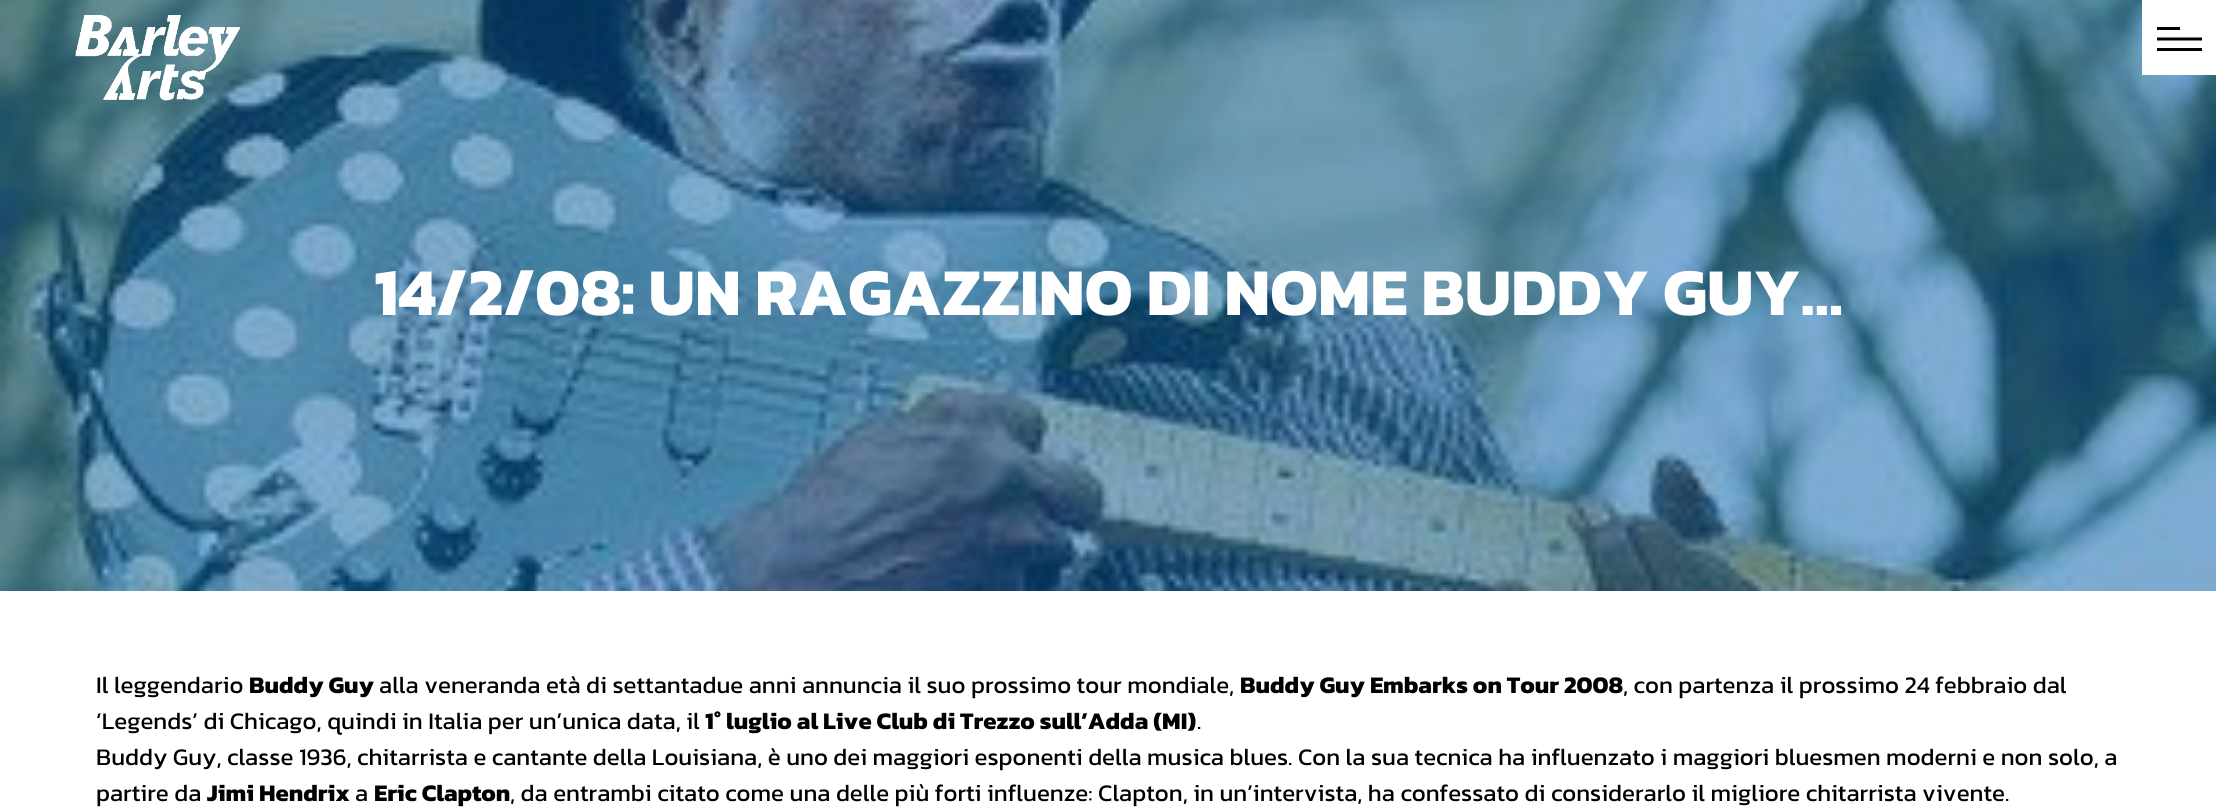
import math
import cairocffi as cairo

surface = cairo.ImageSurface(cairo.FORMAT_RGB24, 2216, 808)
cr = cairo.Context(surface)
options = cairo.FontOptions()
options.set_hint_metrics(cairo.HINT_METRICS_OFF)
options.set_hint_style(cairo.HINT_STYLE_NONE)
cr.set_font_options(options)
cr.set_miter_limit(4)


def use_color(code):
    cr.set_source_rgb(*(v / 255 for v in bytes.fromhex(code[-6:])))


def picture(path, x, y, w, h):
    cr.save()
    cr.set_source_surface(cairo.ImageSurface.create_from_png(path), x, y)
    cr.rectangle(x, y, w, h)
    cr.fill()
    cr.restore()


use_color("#ffffff")
cr.paint()
picture("img2.png", 0, 0, 2216, 591)
picture("img1.png", 75, 15, 165, 86)
use_color("#ffffff")
cr.rectangle(2142, 0, 74, 75)
cr.fill()
use_color("#000000")
cr.rectangle(2157, 27, 23, 3)
cr.fill()
cr.new_path()
cr.move_to(2157, 39)
cr.line_to(2202, 39)
cr.set_line_width(3)
cr.stroke()
cr.rectangle(2157, 48, 45, 3)
cr.fill()
cr.select_font_face("Kanit", cairo.FONT_SLANT_NORMAL, cairo.FONT_WEIGHT_BOLD)
cr.set_font_size(67.5)
use_color("#ffffff")
cr.move_to(374, 315)
cr.show_text("14/2/08: UN RAGAZZINO DI NOME BUDDY GUY…")
cr.select_font_face("Kanit")
cr.set_font_size(24)
use_color("#000000")
cr.move_to(96, 693)
cr.show_text("Il leggendario")
cr.select_font_face("Kanit", cairo.FONT_SLANT_NORMAL, cairo.FONT_WEIGHT_BOLD)
cr.move_to(249, 693)
cr.show_text("Buddy Guy")
cr.select_font_face("Kanit")
cr.move_to(379, 693)
cr.show_text("alla veneranda età di settantadue anni annuncia il suo prossimo tour mondiale,")
cr.select_font_face("Kanit", cairo.FONT_SLANT_NORMAL, cairo.FONT_WEIGHT_BOLD)
cr.move_to(1240, 693)
cr.show_text("Buddy Guy Embarks on Tour 2008")
cr.select_font_face("Kanit")
cr.move_to(1623, 693)
cr.show_text(", con partenza il prossimo 24 febbraio dal")
cr.move_to(96, 729)
cr.show_text("‘Legends’ di Chicago, quindi in Italia per un’unica data, il")
cr.select_font_face("Kanit", cairo.FONT_SLANT_NORMAL, cairo.FONT_WEIGHT_BOLD)
cr.move_to(705, 729)
cr.show_text("1° luglio al Live Club di Trezzo sull’Adda (MI)")
cr.select_font_face("Kanit")
cr.move_to(1197, 729)
cr.show_text(".")
cr.move_to(96, 765)
cr.show_text("Buddy Guy, classe 1936, chitarrista e cantante della Louisiana, è uno dei maggiori esponenti della musica blues. Con la sua tecnica ha influenzato i maggiori bluesmen moderni e non solo, a")
cr.move_to(96, 801)
cr.show_text("partire da")
cr.select_font_face("Kanit", cairo.FONT_SLANT_NORMAL, cairo.FONT_WEIGHT_BOLD)
cr.move_to(207, 801)
cr.show_text("Jimi Hendrix")
cr.select_font_face("Kanit")
cr.move_to(355, 801)
cr.show_text("a")
cr.select_font_face("Kanit", cairo.FONT_SLANT_NORMAL, cairo.FONT_WEIGHT_BOLD)
cr.move_to(374, 801)
cr.show_text("Eric Clapton")
cr.select_font_face("Kanit")
cr.move_to(510, 801)
cr.show_text(", da entrambi citato come una delle più forti influenze: Clapton, in un’intervista, ha confessato di considerarlo il migliore chitarrista vivente.")
surface.write_to_png("result.png")
